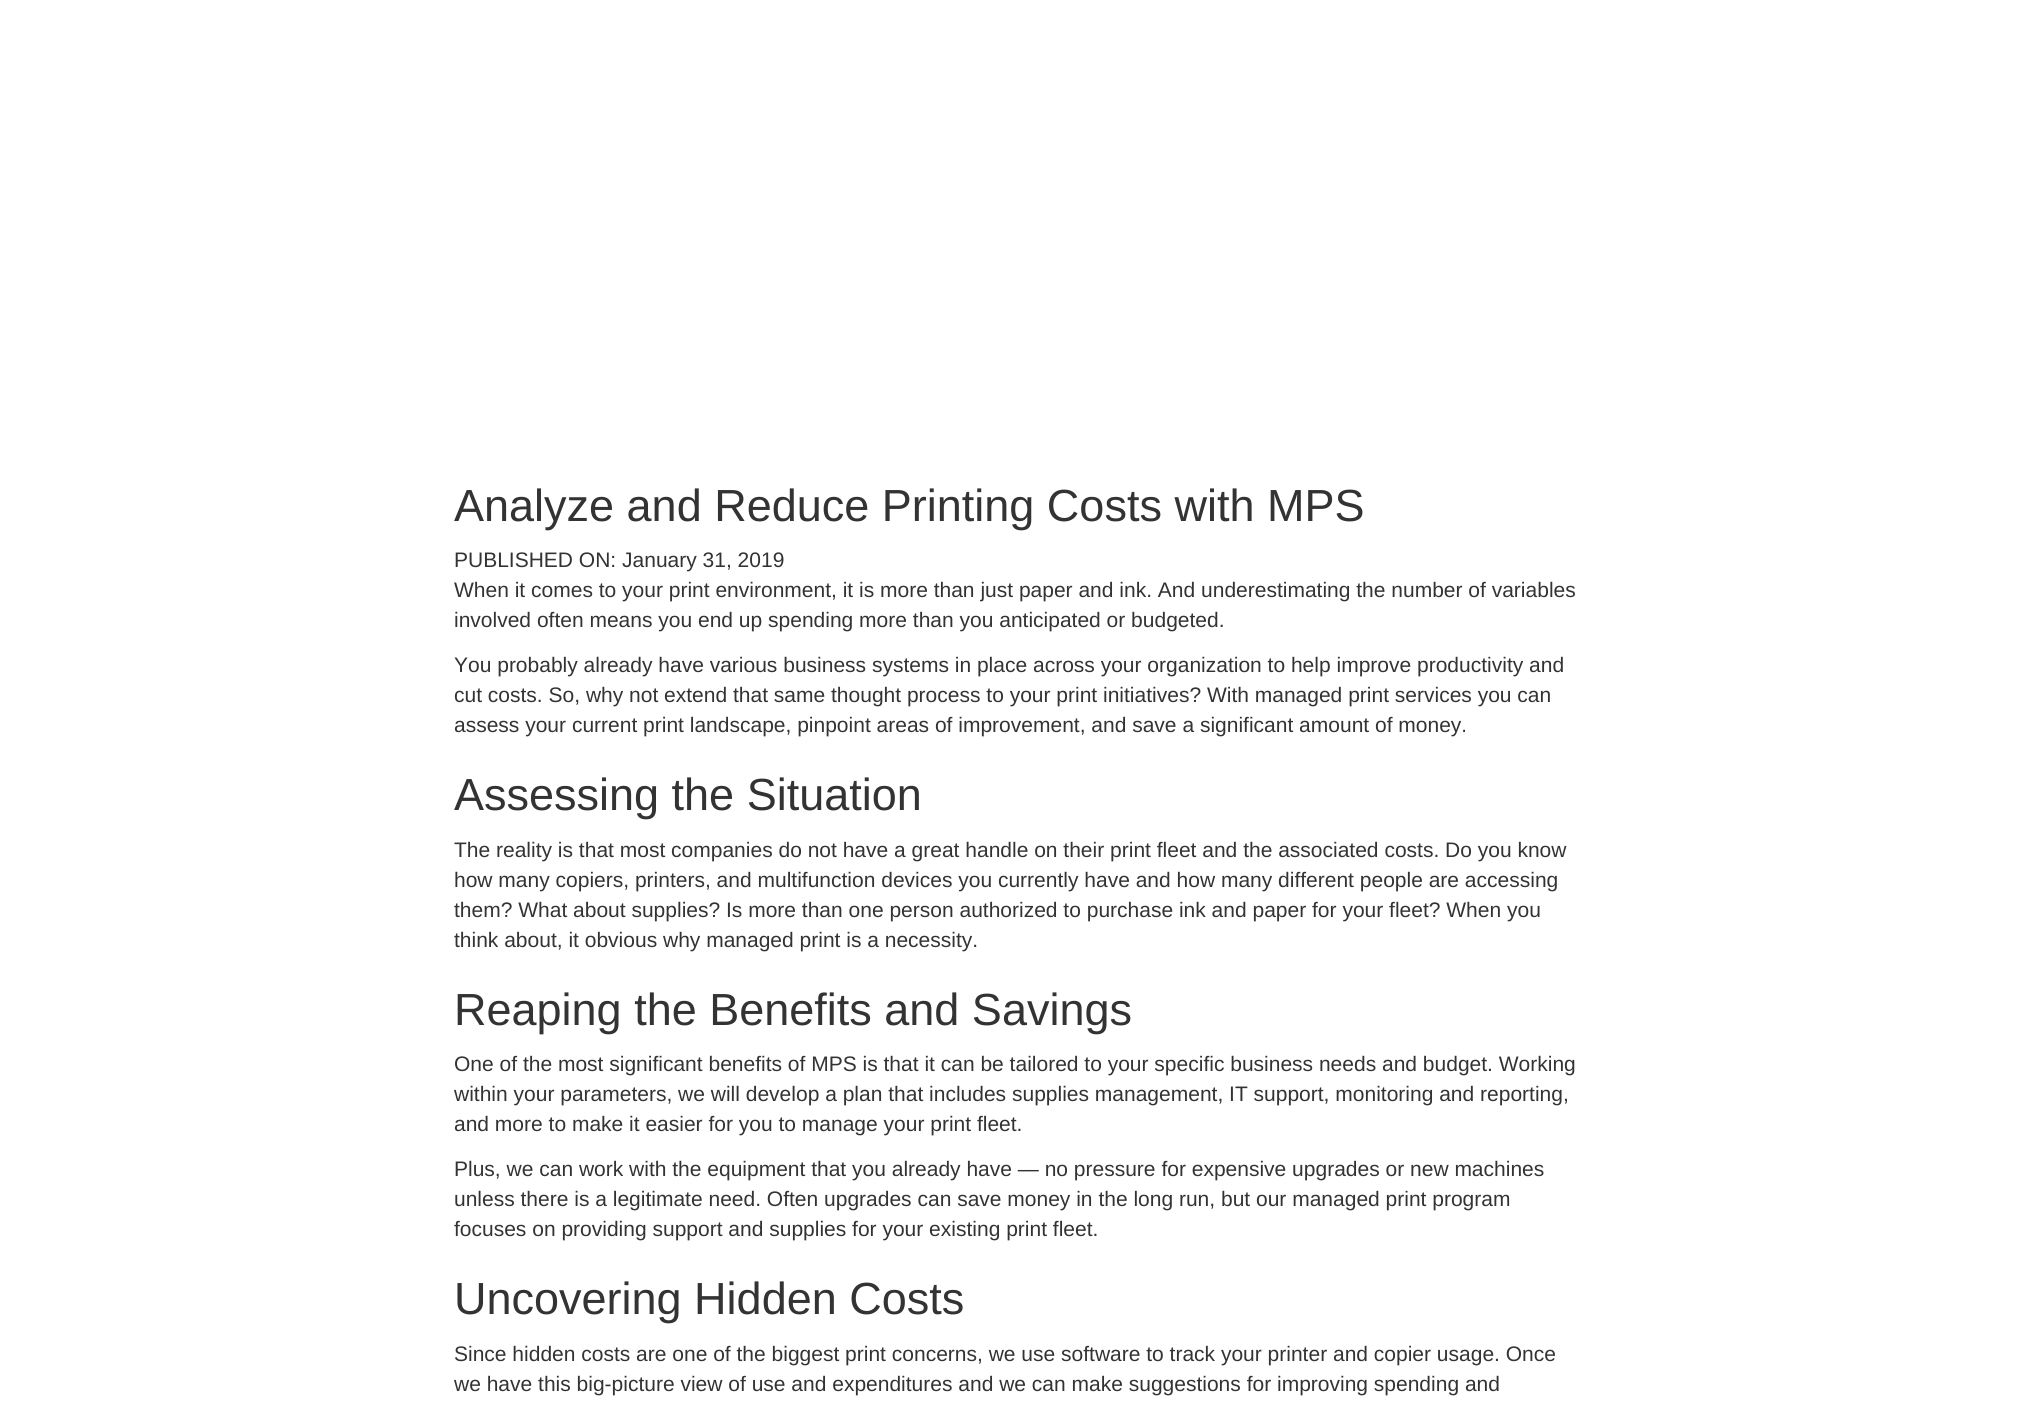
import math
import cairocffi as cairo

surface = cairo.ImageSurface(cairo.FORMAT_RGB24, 2032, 1402)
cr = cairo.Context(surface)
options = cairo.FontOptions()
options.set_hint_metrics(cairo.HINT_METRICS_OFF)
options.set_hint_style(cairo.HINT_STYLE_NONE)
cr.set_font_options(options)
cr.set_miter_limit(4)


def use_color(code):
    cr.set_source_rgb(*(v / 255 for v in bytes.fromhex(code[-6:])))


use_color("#ffffff")
cr.paint()
cr.select_font_face("Liberation Sans")
cr.set_font_size(45)
use_color("#333333")
cr.move_to(454, 521)
cr.show_text("Analyze and Reduce Printing Costs with MPS")
cr.set_font_size(21)
cr.move_to(454, 567)
cr.show_text("PUBLISHED ON: January 31, 2019")
cr.move_to(454, 597)
cr.show_text("When it comes to your print environment, it is more than just paper and ink. And underestimating the number of variables")
cr.move_to(454, 627)
cr.show_text("involved often means you end up spending more than you anticipated or budgeted.")
cr.move_to(454, 672)
cr.show_text("You probably already have various business systems in place across your organization to help improve productivity and")
cr.move_to(454, 702)
cr.show_text("cut costs. So, why not extend that same thought process to your print initiatives? With managed print services you can")
cr.move_to(454, 732)
cr.show_text("assess your current print landscape, pinpoint areas of improvement, and save a significant amount of money.")
cr.set_font_size(45)
cr.move_to(454, 810)
cr.show_text("Assessing the Situation")
cr.set_font_size(21)
cr.move_to(454, 857)
cr.show_text("The reality is that most companies do not have a great handle on their print fleet and the associated costs. Do you know")
cr.move_to(454, 887)
cr.show_text("how many copiers, printers, and multifunction devices you currently have and how many different people are accessing")
cr.move_to(454, 917)
cr.show_text("them? What about supplies? Is more than one person authorized to purchase ink and paper for your fleet? When you")
cr.move_to(454, 947)
cr.show_text("think about, it obvious why managed print is a necessity.")
cr.set_font_size(45)
cr.move_to(454, 1025)
cr.show_text("Reaping the Benefits and Savings")
cr.set_font_size(21)
cr.move_to(454, 1071)
cr.show_text("One of the most significant benefits of MPS is that it can be tailored to your specific business needs and budget. Working")
cr.move_to(454, 1101)
cr.show_text("within your parameters, we will develop a plan that includes supplies management, IT support, monitoring and reporting,")
cr.move_to(454, 1131)
cr.show_text("and more to make it easier for you to manage your print fleet.")
cr.move_to(454, 1176)
cr.show_text("Plus, we can work with the equipment that you already have — no pressure for expensive upgrades or new machines")
cr.move_to(454, 1206)
cr.show_text("unless there is a legitimate need. Often upgrades can save money in the long run, but our managed print program")
cr.move_to(454, 1236)
cr.show_text("focuses on providing support and supplies for your existing print fleet.")
cr.set_font_size(45)
cr.move_to(454, 1314)
cr.show_text("Uncovering Hidden Costs")
cr.set_font_size(21)
cr.move_to(454, 1361)
cr.show_text("Since hidden costs are one of the biggest print concerns, we use software to track your printer and copier usage. Once")
cr.move_to(454, 1391)
cr.show_text("we have this big-picture view of use and expenditures and we can make suggestions for improving spending and")
surface.write_to_png("result.png")
